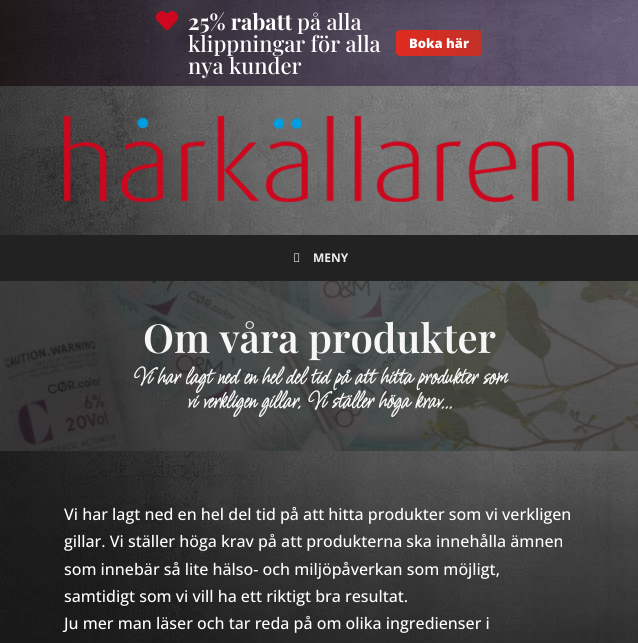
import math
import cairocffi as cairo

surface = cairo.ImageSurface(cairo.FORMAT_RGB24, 638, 643)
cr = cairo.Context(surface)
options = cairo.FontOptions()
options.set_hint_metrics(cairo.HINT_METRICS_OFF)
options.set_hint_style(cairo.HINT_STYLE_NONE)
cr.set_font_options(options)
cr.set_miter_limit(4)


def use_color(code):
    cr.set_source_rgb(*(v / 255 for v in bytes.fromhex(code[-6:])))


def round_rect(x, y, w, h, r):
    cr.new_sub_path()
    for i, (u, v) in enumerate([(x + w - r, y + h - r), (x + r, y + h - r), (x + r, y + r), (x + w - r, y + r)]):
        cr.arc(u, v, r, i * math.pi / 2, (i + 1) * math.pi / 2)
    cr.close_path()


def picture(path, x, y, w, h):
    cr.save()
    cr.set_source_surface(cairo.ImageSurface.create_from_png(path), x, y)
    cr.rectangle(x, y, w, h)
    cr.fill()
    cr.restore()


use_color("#ffffff")
cr.paint()
picture("img1.png", 0, 0, 638, 643)
picture("img2.png", 156, 11, 22, 20)
cr.select_font_face("Playfair Display", cairo.FONT_SLANT_NORMAL, cairo.FONT_WEIGHT_BOLD)
cr.set_font_size(22)
use_color("#ffffff")
cr.move_to(188, 30)
cr.show_text("25% rabatt")
cr.select_font_face("Playfair Display Medium")
cr.move_to(297, 30)
cr.show_text("på alla")
cr.move_to(188, 52)
cr.show_text("klippningar för alla")
cr.move_to(188, 74)
cr.show_text("nya kunder")
use_color("#474747")
round_rect(396, 30, 86, 26, 4)
cr.fill()
gradient = cairo.LinearGradient(396, 43, 482, 43)
gradient.add_color_stop_rgba(0, 0.878, 0.169, 0.125, 1)
gradient.add_color_stop_rgba(1, 0.878, 0.169, 0.125, 0.81)
cr.set_source(gradient)
round_rect(396, 30, 86, 26, 4)
cr.fill()
cr.select_font_face("Open Sans ExtraBold")
cr.set_font_size(13)
use_color("#ffffff")
cr.move_to(409, 48)
cr.show_text("Boka här")
picture("img3.png", 64, 116, 510, 86)
use_color("#222222")
cr.rectangle(0, 235, 638, 46)
cr.fill()
picture("img4.png", 294, 253, 6, 9)
cr.select_font_face("Open Sans", cairo.FONT_SLANT_NORMAL, cairo.FONT_WEIGHT_BOLD)
cr.set_font_size(12)
use_color("#eeeeee")
cr.move_to(313, 262)
cr.show_text("MENY")
picture("img5.png", 0, 281, 638, 170)
cr.set_source_rgba(0, 0, 0, 0.38)
cr.rectangle(0, 281, 638, 170)
cr.fill()
cr.select_font_face("Playfair Display SemiBold")
cr.set_font_size(40)
use_color("#f6f6f6")
cr.move_to(143, 353)
cr.show_text("Om våra produkter")
cr.select_font_face("Licorice", cairo.FONT_SLANT_ITALIC, cairo.FONT_WEIGHT_BOLD)
cr.set_font_size(24)
cr.move_to(132, 384)
cr.show_text("Vi har lagt ned en hel del tid på att hitta produkter som")
cr.move_to(186, 408)
cr.show_text("vi verkligen gillar. Vi ställer höga krav…")
cr.select_font_face("Open Sans Medium")
cr.set_font_size(16)
use_color("#ffffff")
cr.move_to(64, 520)
cr.show_text("Vi har lagt ned en hel del tid på att hitta produkter som vi verkligen")
cr.move_to(64, 547)
cr.show_text("gillar. Vi ställer höga krav på att produkterna ska innehålla ämnen")
cr.move_to(64, 575)
cr.show_text("som innebär så lite hälso- och miljöpåverkan som möjligt,")
cr.move_to(64, 602)
cr.show_text("samtidigt som vi vill ha ett riktigt bra resultat.")
cr.move_to(64, 629)
cr.show_text("Ju mer man läser och tar reda på om olika ingredienser i")
surface.write_to_png("result.png")
